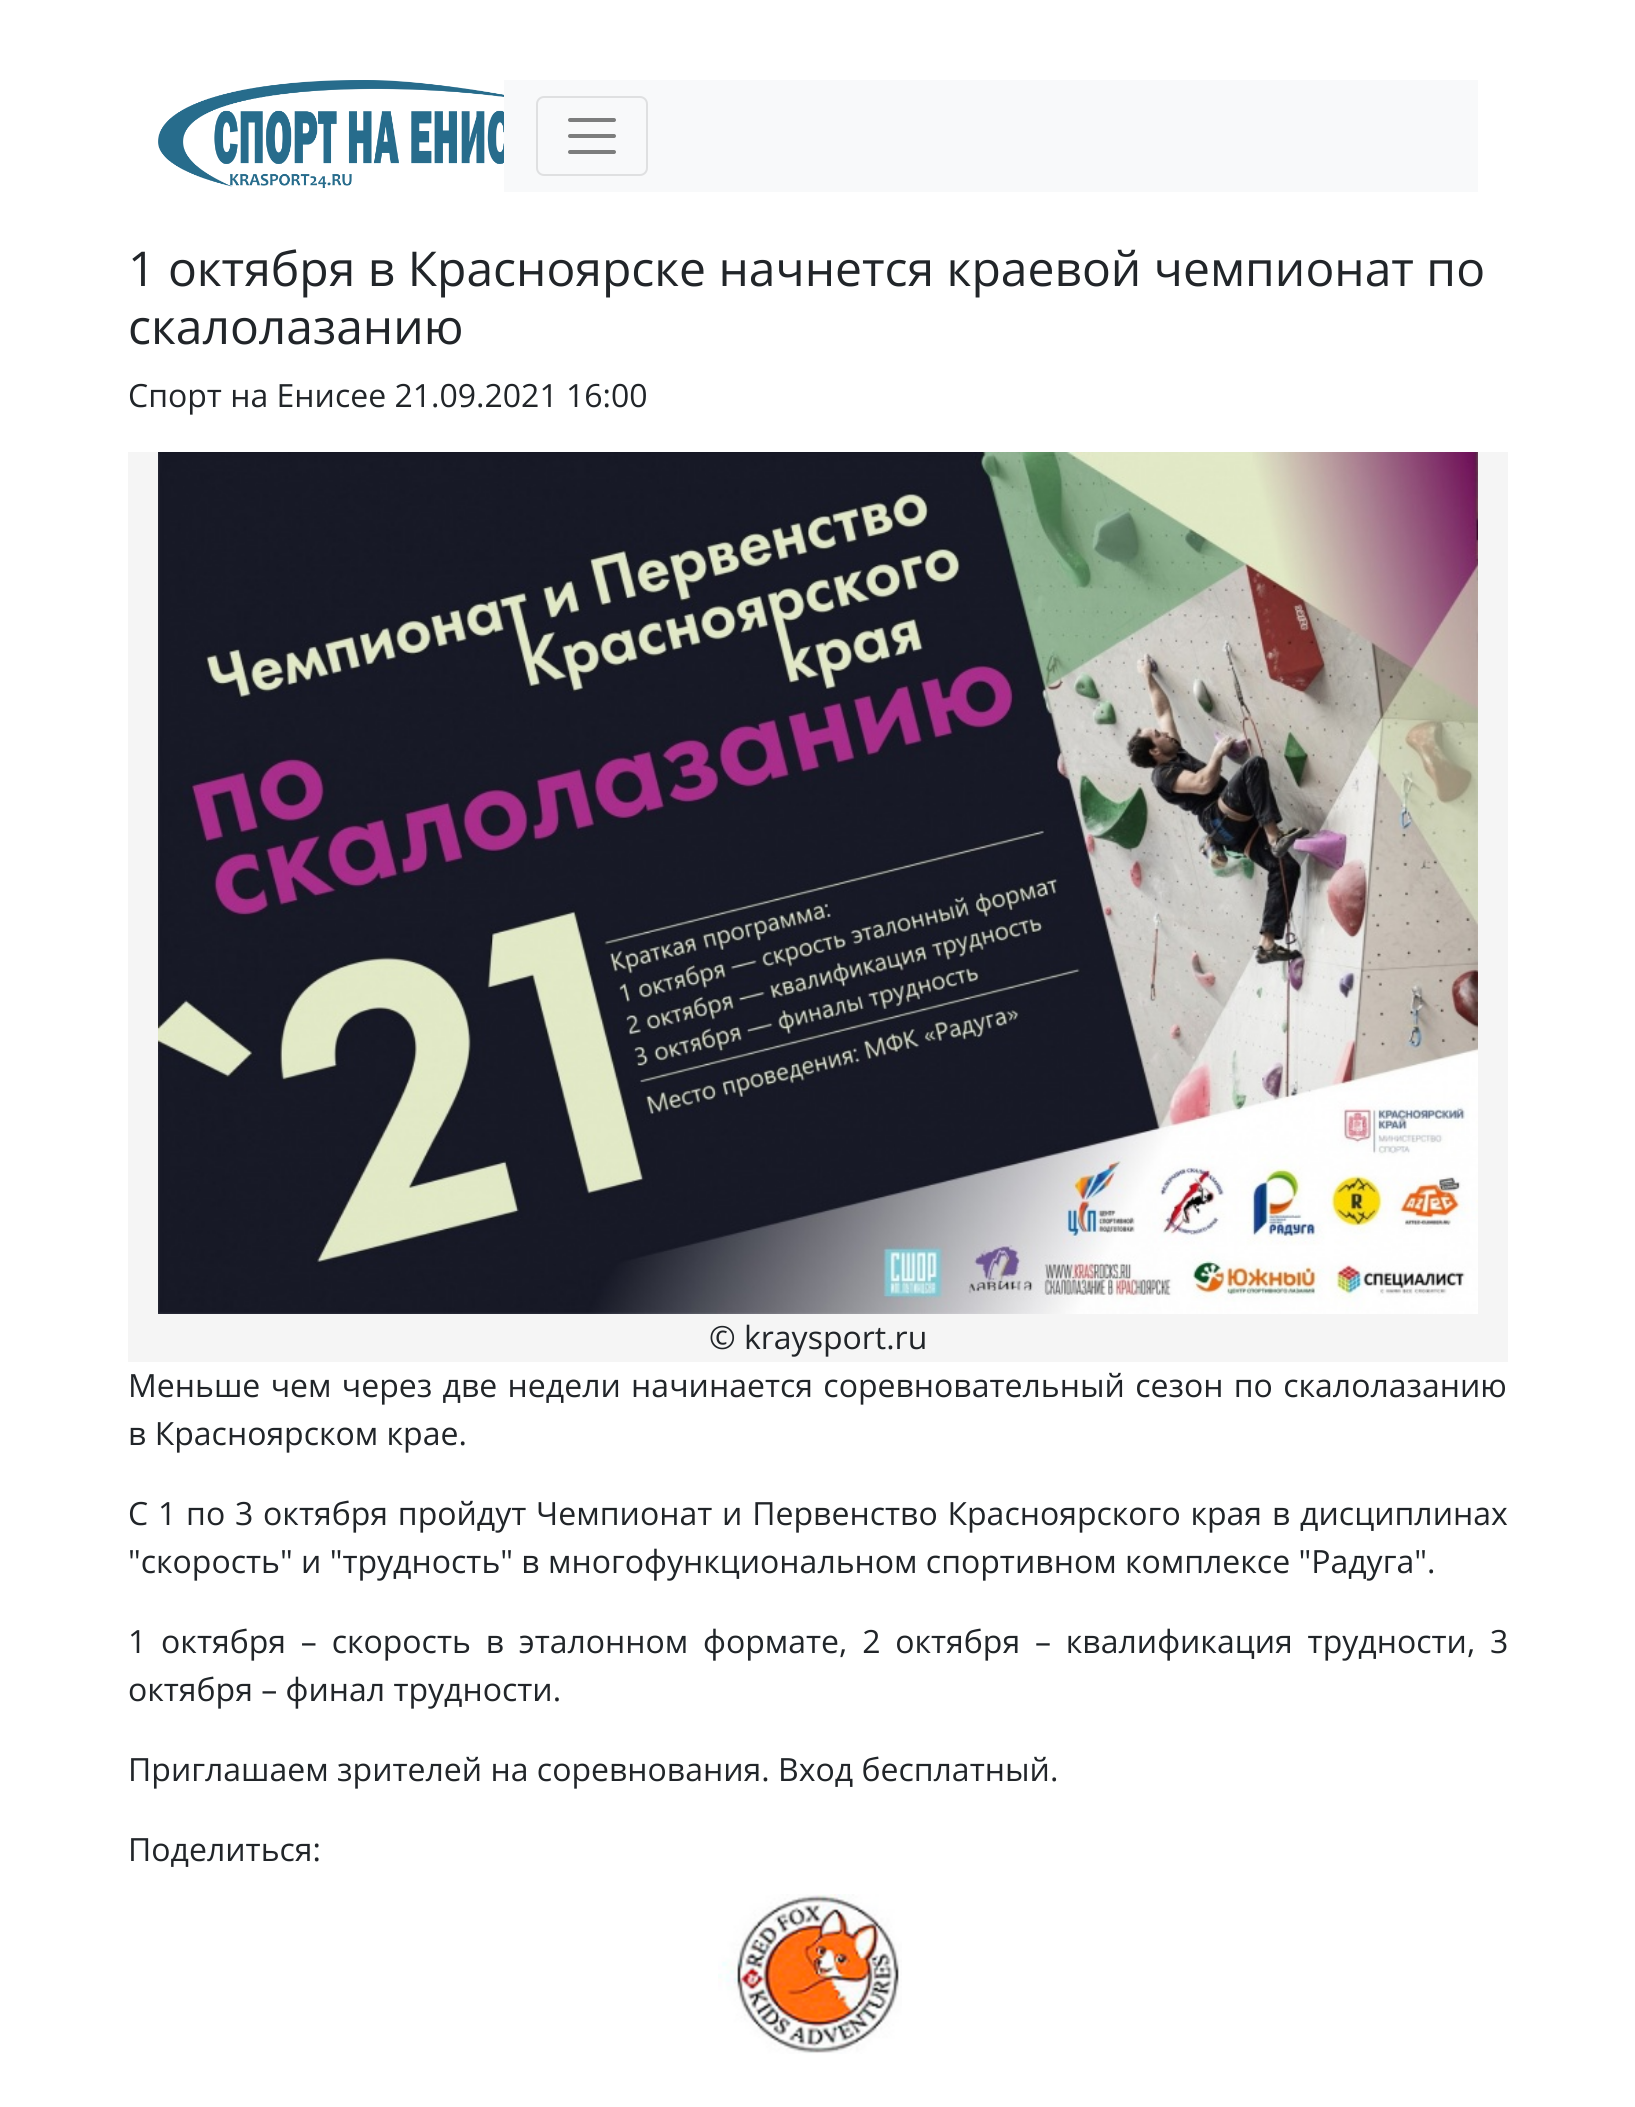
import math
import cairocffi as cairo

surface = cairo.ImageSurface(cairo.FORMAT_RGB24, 1635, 2107)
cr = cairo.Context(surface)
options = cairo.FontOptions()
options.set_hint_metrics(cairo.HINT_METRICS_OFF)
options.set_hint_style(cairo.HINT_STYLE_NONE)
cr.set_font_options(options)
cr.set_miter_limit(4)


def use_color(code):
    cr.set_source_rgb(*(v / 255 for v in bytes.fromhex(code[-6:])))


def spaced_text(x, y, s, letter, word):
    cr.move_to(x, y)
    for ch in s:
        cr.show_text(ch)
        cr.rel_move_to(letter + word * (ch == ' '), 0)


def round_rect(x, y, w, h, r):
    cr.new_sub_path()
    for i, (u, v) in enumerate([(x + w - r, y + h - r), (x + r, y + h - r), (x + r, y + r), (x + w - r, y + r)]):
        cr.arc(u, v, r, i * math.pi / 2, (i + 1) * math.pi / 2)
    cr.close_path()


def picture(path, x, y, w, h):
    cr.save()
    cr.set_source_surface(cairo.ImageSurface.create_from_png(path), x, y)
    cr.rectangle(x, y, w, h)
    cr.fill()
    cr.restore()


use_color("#ffffff")
cr.paint()
picture("img1.png", 158, 80, 346, 108)
use_color("#f8f9fa")
cr.rectangle(504, 80, 974, 112)
cr.fill()
round_rect(537, 97, 110, 78, 7)
use_color("#dfe0e1")
cr.stroke()
cr.new_path()
cr.move_to(570, 120)
cr.line_to(614, 120)
cr.move_to(570, 136)
cr.line_to(614, 136)
cr.move_to(570, 152)
cr.line_to(614, 152)
use_color("#7c7d7d")
cr.set_line_width(4)
cr.set_line_cap(cairo.LINE_CAP_ROUND)
cr.stroke()
cr.select_font_face("Open Sans")
cr.set_font_size(48)
use_color("#212529")
cr.move_to(128, 286)
cr.show_text("1 октября в Красноярске начнется краевой чемпионат по")
cr.move_to(128, 344)
cr.show_text("скалолазанию")
cr.set_font_size(32)
cr.move_to(128, 407)
cr.show_text("Спорт на Енисее 21.09.2021 16:00")
use_color("#f5f5f5")
cr.rectangle(128, 452, 1380, 910)
cr.fill()
picture("img2.png", 158, 452, 1320, 862)
use_color("#212529")
cr.move_to(709, 1349)
cr.show_text("© kraysport.ru")
spaced_text(128, 1397, "Меньше чем через две недели начинается соревновательный сезон по скалолазанию", 0, 2)
cr.move_to(128, 1445)
cr.show_text("в Красноярском крае.")
spaced_text(128, 1525, "С 1 по 3 октября пройдут Чемпионат и Первенство Красноярского края в дисциплинах", 0, 1.5)
cr.move_to(128, 1573)
cr.show_text("\"скорость\" и \"трудность\" в многофункциональном спортивном комплексе \"Радуга\".")
spaced_text(128, 1653, "1 октября – скорость в эталонном формате, 2 октября – квалификация трудности, 3", 0, 6.5)
cr.move_to(128, 1701)
cr.show_text("октября – финал трудности.")
cr.move_to(128, 1781)
cr.show_text("Приглашаем зрителей на соревнования. Вход бесплатный.")
cr.move_to(128, 1861)
cr.show_text("Поделиться:")
picture("img3.png", 718, 1894, 184, 160)
surface.write_to_png("result.png")
